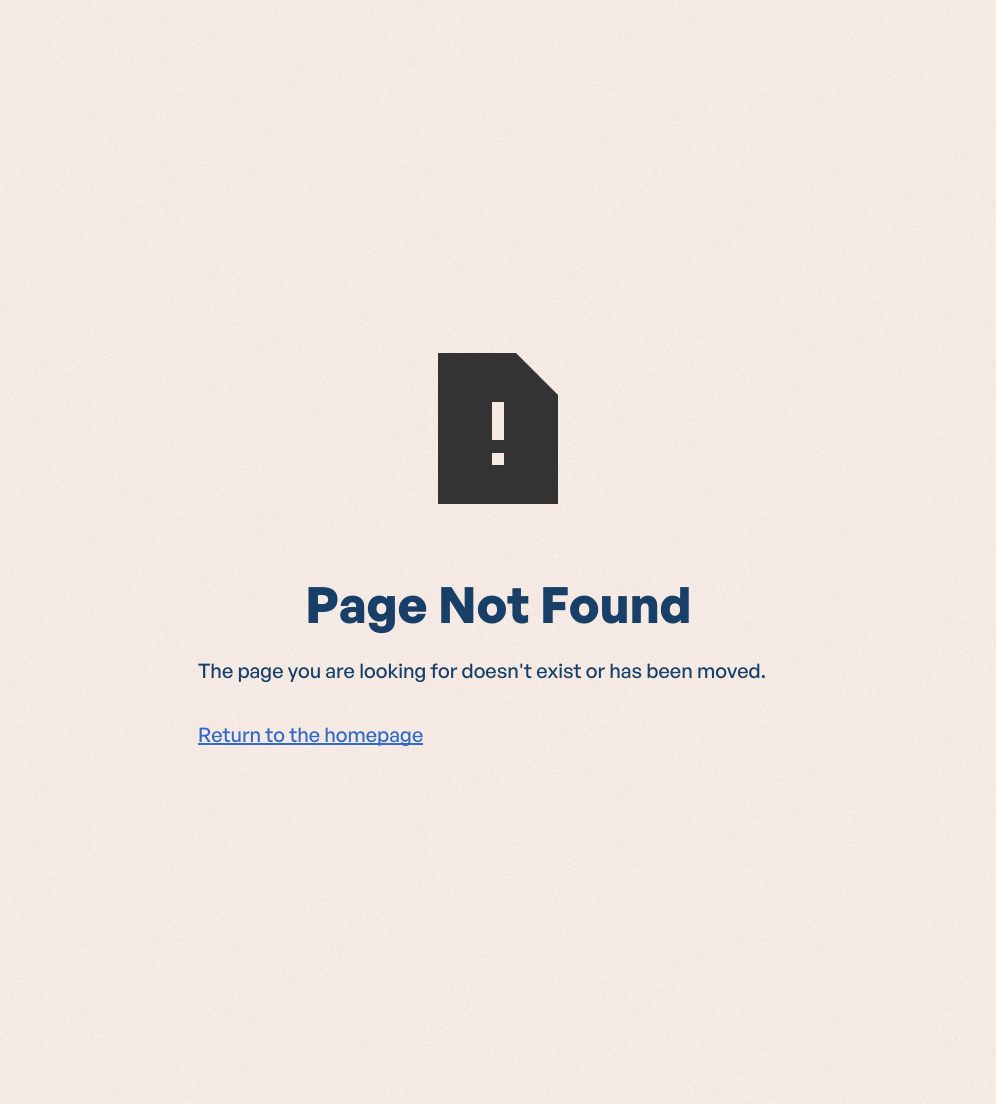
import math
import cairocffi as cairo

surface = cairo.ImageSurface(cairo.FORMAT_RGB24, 996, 1104)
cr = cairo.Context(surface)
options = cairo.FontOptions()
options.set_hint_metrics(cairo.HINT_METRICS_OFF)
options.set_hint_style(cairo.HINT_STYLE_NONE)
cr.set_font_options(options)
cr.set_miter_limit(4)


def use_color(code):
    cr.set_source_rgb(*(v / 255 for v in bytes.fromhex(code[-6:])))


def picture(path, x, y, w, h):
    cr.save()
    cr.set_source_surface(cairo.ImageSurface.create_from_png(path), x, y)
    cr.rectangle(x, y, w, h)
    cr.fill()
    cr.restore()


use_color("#faf0e8")
cr.paint()
picture("img1.png", 0, 0, 996, 1104)
use_color("#333333")
cr.set_fill_rule(cairo.FILL_RULE_EVEN_ODD)
cr.new_path()
cr.move_to(438, 353)
cr.line_to(516, 353)
cr.line_to(558, 395)
cr.line_to(558, 504)
cr.line_to(438, 504)
cr.close_path()
cr.move_to(492, 402)
cr.line_to(504, 402)
cr.line_to(504, 440)
cr.line_to(492, 440)
cr.close_path()
cr.move_to(492, 453)
cr.line_to(504, 453)
cr.line_to(504, 465)
cr.line_to(492, 465)
cr.close_path()
cr.fill()
cr.select_font_face("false", cairo.FONT_SLANT_NORMAL, cairo.FONT_WEIGHT_BOLD)
cr.set_font_size(50)
use_color("#183f68")
cr.move_to(305, 623)
cr.show_text("Page Not Found")
cr.select_font_face("General Sans Medium")
cr.set_font_size(20)
cr.move_to(198, 678)
cr.show_text("The page you are looking for doesn't exist or has been moved.")
use_color("#326ac7")
cr.rectangle(198, 743, 225, 2)
cr.fill()
cr.move_to(198, 742)
cr.show_text("Return to the homepage")
surface.write_to_png("result.png")
